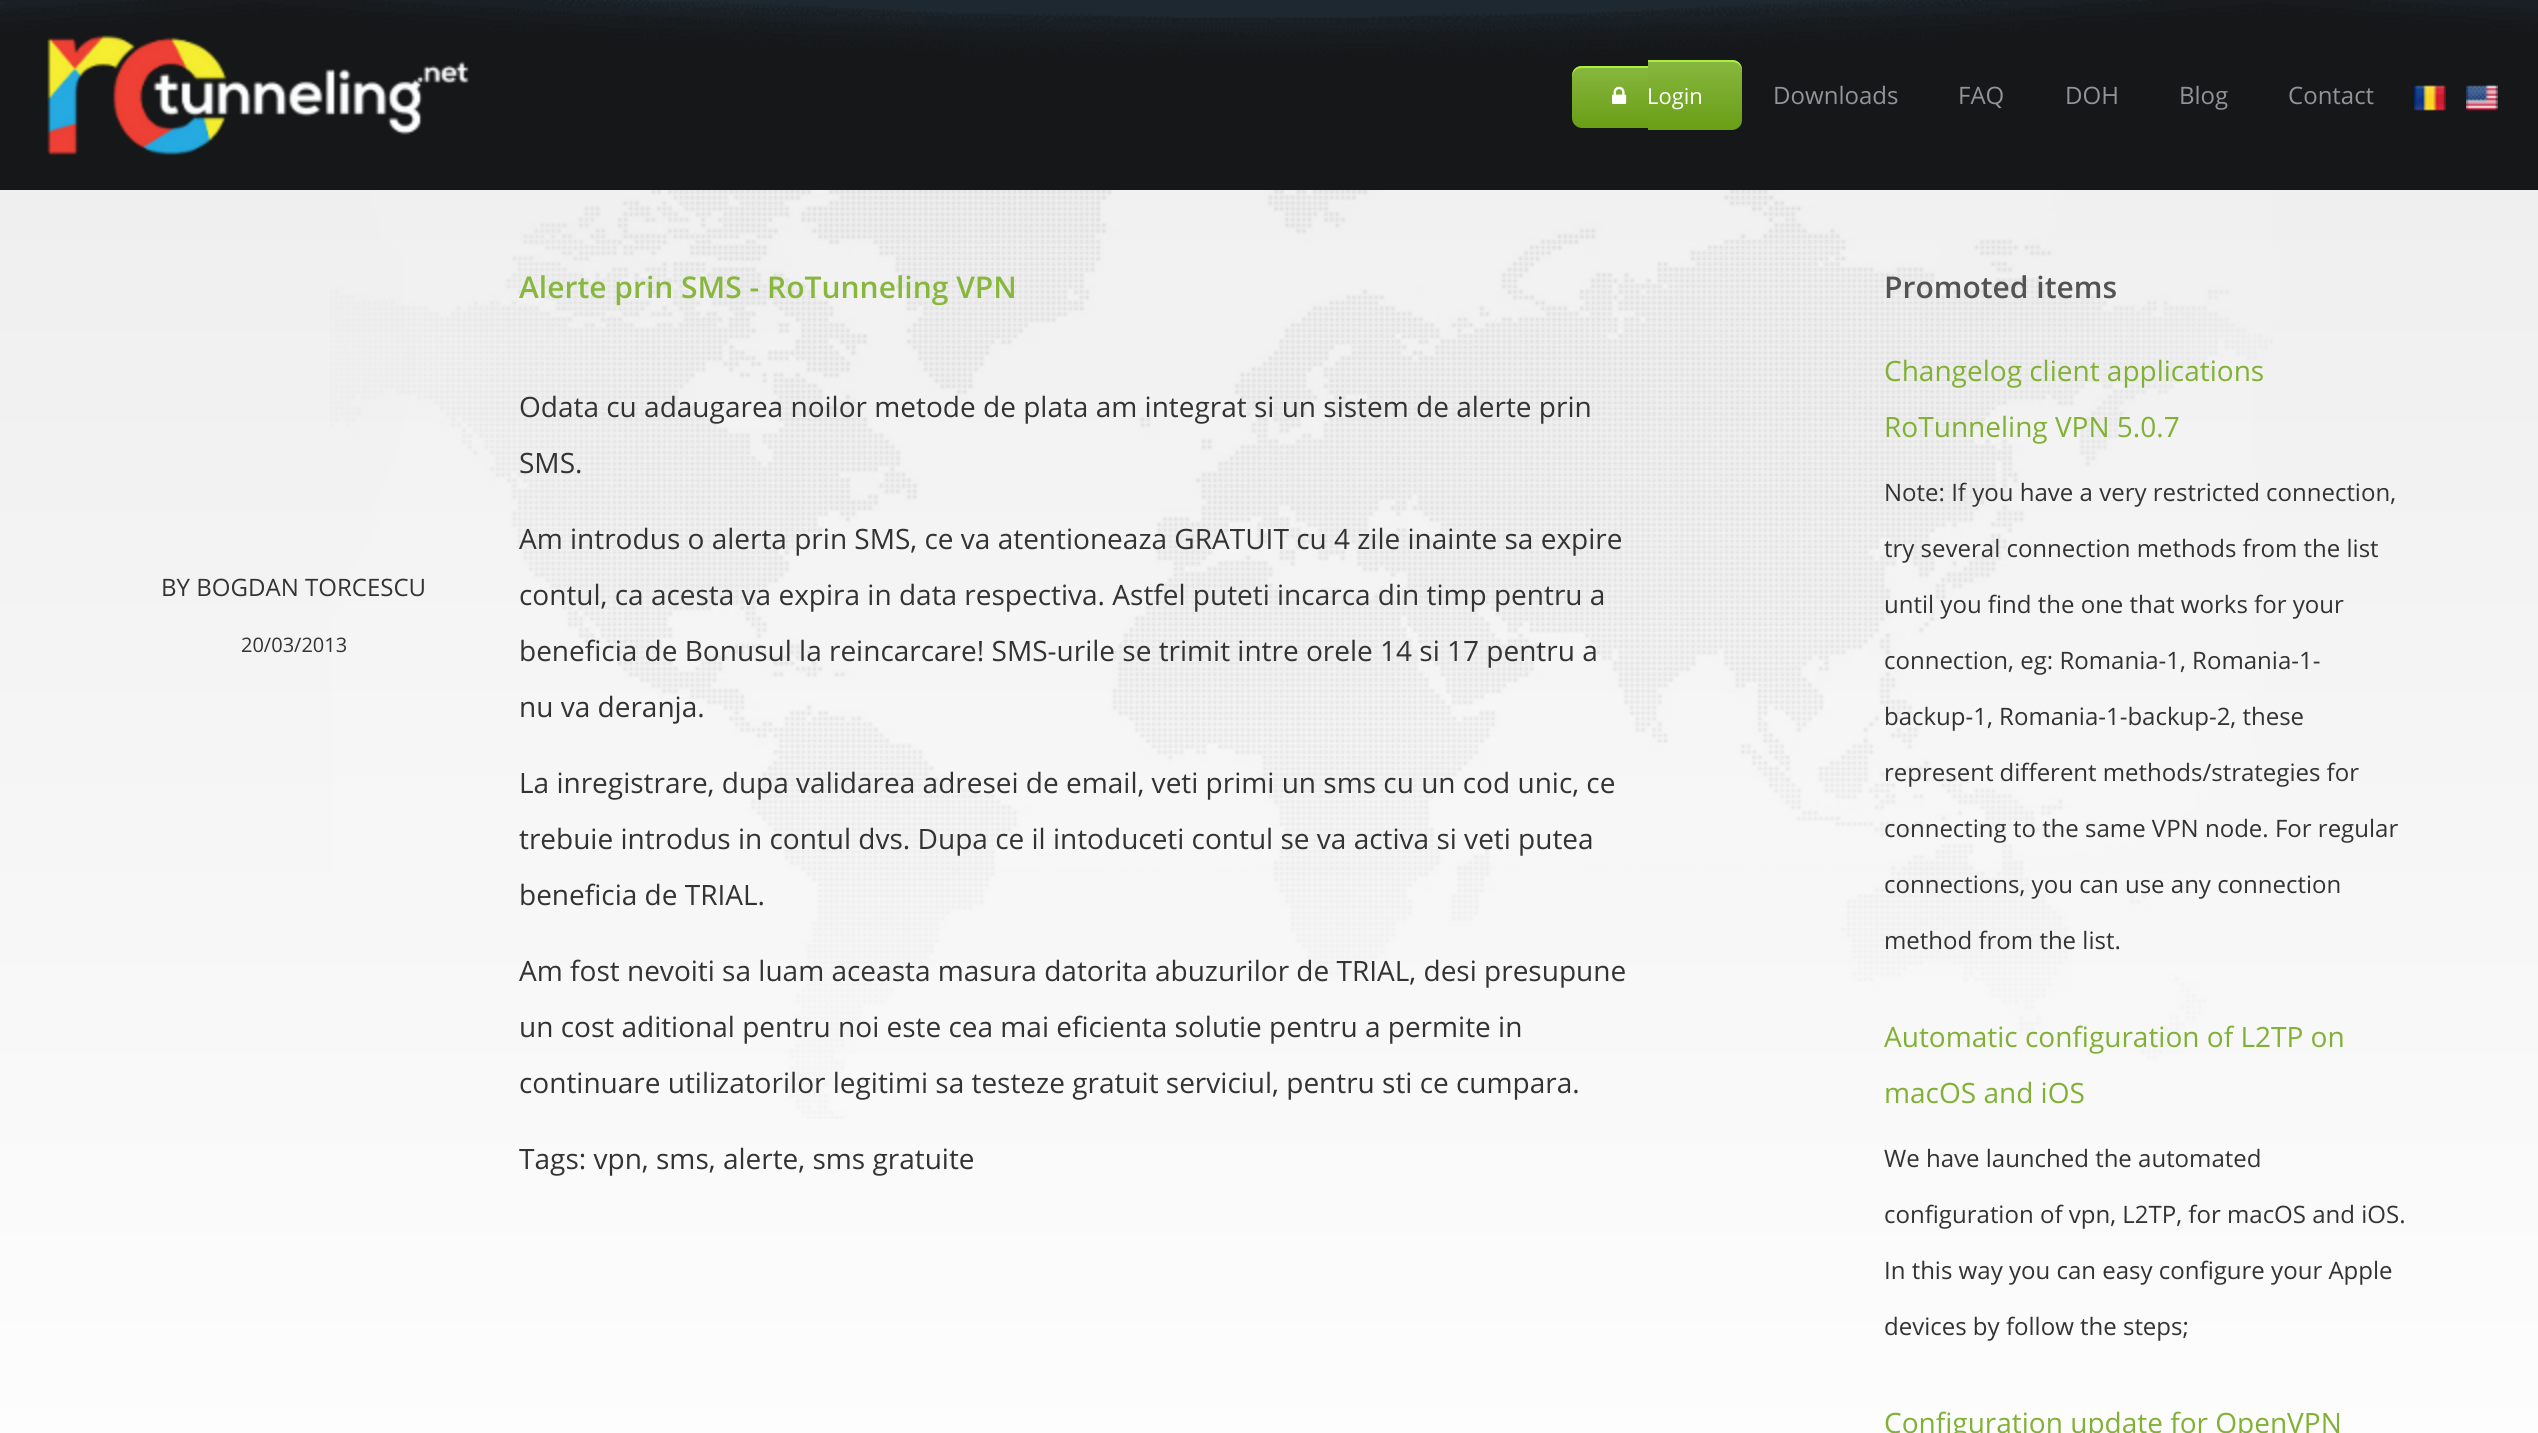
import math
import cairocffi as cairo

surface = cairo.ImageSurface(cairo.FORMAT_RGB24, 2538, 1433)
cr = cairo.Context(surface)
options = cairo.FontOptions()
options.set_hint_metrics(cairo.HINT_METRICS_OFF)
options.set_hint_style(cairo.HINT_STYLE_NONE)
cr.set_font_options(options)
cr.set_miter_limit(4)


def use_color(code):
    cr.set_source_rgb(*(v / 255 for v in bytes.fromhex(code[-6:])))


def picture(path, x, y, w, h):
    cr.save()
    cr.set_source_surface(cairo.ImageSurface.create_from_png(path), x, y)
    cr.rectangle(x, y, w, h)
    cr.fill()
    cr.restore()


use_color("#151718")
cr.paint()
picture("img1.png", 0, 0, 2538, 54)
picture("img2.png", 47, 35, 422, 121)
gradient = cairo.LinearGradient(1610, 66, 1610, 128)
gradient.add_color_stop_rgba(0, 0.533, 0.718, 0.243, 1)
gradient.add_color_stop_rgba(1, 0.412, 0.62, 0.086, 1)
cr.set_source(gradient)
cr.new_path()
cr.move_to(1582, 66)
cr.line_to(1648, 66)
cr.line_to(1648, 128)
cr.line_to(1582, 128)
cr.curve_to(1576.5, 128, 1572, 123.5, 1572, 118)
cr.line_to(1572, 76)
cr.curve_to(1572, 70.5, 1576.5, 66, 1582, 66)
cr.close_path()
cr.fill()
use_color("#aaef40")
cr.new_path()
cr.move_to(1582, 68)
cr.line_to(1648, 68)
cr.line_to(1648, 66)
cr.line_to(1582, 66)
cr.curve_to(1576, 66, 1572, 70, 1572, 76)
cr.line_to(1572, 78)
cr.curve_to(1572, 72, 1576, 68, 1582, 68)
cr.close_path()
cr.fill()
gradient = cairo.LinearGradient(1695, 60, 1695, 130)
gradient.add_color_stop_rgba(0, 0.533, 0.718, 0.243, 1)
gradient.add_color_stop_rgba(1, 0.412, 0.62, 0.086, 1)
cr.set_source(gradient)
cr.new_path()
cr.move_to(1648, 60)
cr.line_to(1732, 60)
cr.curve_to(1737.5, 60, 1742, 64.5, 1742, 70)
cr.line_to(1742, 120)
cr.curve_to(1742, 125.5, 1737.5, 130, 1732, 130)
cr.line_to(1648, 130)
cr.close_path()
cr.fill()
use_color("#aaef40")
cr.new_path()
cr.move_to(1648, 62)
cr.line_to(1732, 62)
cr.curve_to(1738, 62, 1742, 66, 1742, 72)
cr.line_to(1742, 70)
cr.curve_to(1742, 64, 1738, 60, 1732, 60)
cr.line_to(1648, 60)
cr.close_path()
cr.fill()
picture("img3.png", 1612, 86, 15, 18)
cr.select_font_face("Open Sans")
cr.set_font_size(22)
use_color("#ffffff")
cr.move_to(1647, 104)
cr.show_text("Login")
cr.set_font_size(24)
use_color("#919598")
cr.move_to(1773, 104)
cr.show_text("Downloads")
cr.move_to(1958, 104)
cr.show_text("FAQ")
cr.move_to(2065, 104)
cr.show_text("DOH")
cr.move_to(2179, 104)
cr.show_text("Blog")
cr.move_to(2288, 104)
cr.show_text("Contact")
picture("img4.png", 2414, 85, 32, 26)
picture("img5.png", 2466, 84, 32, 27)
gradient = cairo.LinearGradient(1269, 190, 1269, 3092)
gradient.add_color_stop_rgba(0, 0.937, 0.937, 0.937, 1)
gradient.add_color_stop_rgba(0.5, 1, 1, 1, 1)
gradient.add_color_stop_rgba(1, 0.937, 0.937, 0.937, 1)
cr.set_source(gradient)
cr.rectangle(0, 190, 2538, 1243)
cr.fill()
picture("img6.png", 330, 190, 1943, 929)
use_color("#333333")
cr.move_to(161, 596)
cr.show_text("BY BOGDAN TORCESCU")
cr.set_font_size(20)
cr.move_to(241, 652)
cr.show_text("20/03/2013")
cr.select_font_face("Open Sans SemiBold")
cr.set_font_size(30)
use_color("#88b73e")
cr.move_to(519, 298)
cr.show_text("Alerte prin SMS - RoTunneling VPN")
cr.select_font_face("Open Sans")
cr.set_font_size(28)
use_color("#333333")
cr.move_to(519, 417)
cr.show_text("Odata cu adaugarea noilor metode de plata am integrat si un sistem de alerte prin")
cr.move_to(519, 473)
cr.show_text("SMS.")
cr.move_to(519, 549)
cr.show_text("Am introdus o alerta prin SMS, ce va atentioneaza GRATUIT cu 4 zile inainte sa expire")
cr.move_to(519, 605)
cr.show_text("contul, ca acesta va expira in data respectiva. Astfel puteti incarca din timp pentru a")
cr.move_to(519, 661)
cr.show_text("beneficia de Bonusul la reincarcare! SMS-urile se trimit intre orele 14 si 17 pentru a")
cr.move_to(519, 717)
cr.show_text("nu va deranja.")
cr.move_to(519, 793)
cr.show_text("La inregistrare, dupa validarea adresei de email, veti primi un sms cu un cod unic, ce")
cr.move_to(519, 849)
cr.show_text("trebuie introdus in contul dvs. Dupa ce il intoduceti contul se va activa si veti putea")
cr.move_to(519, 905)
cr.show_text("beneficia de TRIAL.")
cr.move_to(519, 981)
cr.show_text("Am fost nevoiti sa luam aceasta masura datorita abuzurilor de TRIAL, desi presupune")
cr.move_to(519, 1037)
cr.show_text("un cost aditional pentru noi este cea mai eficienta solutie pentru a permite in")
cr.move_to(519, 1093)
cr.show_text("continuare utilizatorilor legitimi sa testeze gratuit serviciul, pentru sti ce cumpara.")
cr.move_to(519, 1169)
cr.show_text("Tags: vpn, sms, alerte, sms gratuite")
cr.select_font_face("Open Sans SemiBold")
cr.set_font_size(30)
use_color("#535353")
cr.move_to(1884, 298)
cr.show_text("Promoted items")
cr.select_font_face("Open Sans")
cr.set_font_size(28)
use_color("#81b134")
cr.move_to(1884, 381)
cr.show_text("Changelog client applications")
cr.move_to(1884, 437)
cr.show_text("RoTunneling VPN 5.0.7")
cr.set_font_size(24)
use_color("#333333")
cr.move_to(1884, 501)
cr.show_text("Note: If you have a very restricted connection,")
cr.move_to(1884, 557)
cr.show_text("try several connection methods from the list")
cr.move_to(1884, 613)
cr.show_text("until you find the one that works for your")
cr.move_to(1884, 669)
cr.show_text("connection, eg: Romania-1, Romania-1-")
cr.move_to(1884, 725)
cr.show_text("backup-1, Romania-1-backup-2, these")
cr.move_to(1884, 781)
cr.show_text("represent different methods/strategies for")
cr.move_to(1884, 837)
cr.show_text("connecting to the same VPN node. For regular")
cr.move_to(1884, 893)
cr.show_text("connections, you can use any connection")
cr.move_to(1884, 949)
cr.show_text("method from the list.")
cr.set_font_size(28)
use_color("#81b134")
cr.move_to(1884, 1047)
cr.show_text("Automatic configuration of L2TP on")
cr.move_to(1884, 1103)
cr.show_text("macOS and iOS")
cr.set_font_size(24)
use_color("#333333")
cr.move_to(1884, 1167)
cr.show_text("We have launched the automated")
cr.move_to(1884, 1223)
cr.show_text("configuration of vpn, L2TP, for macOS and iOS.")
cr.move_to(1884, 1279)
cr.show_text("In this way you can easy configure your Apple")
cr.move_to(1884, 1335)
cr.show_text("devices by follow the steps;")
cr.set_font_size(28)
use_color("#81b134")
cr.move_to(1884, 1433)
cr.show_text("Configuration update for OpenVPN")
surface.write_to_png("result.png")
